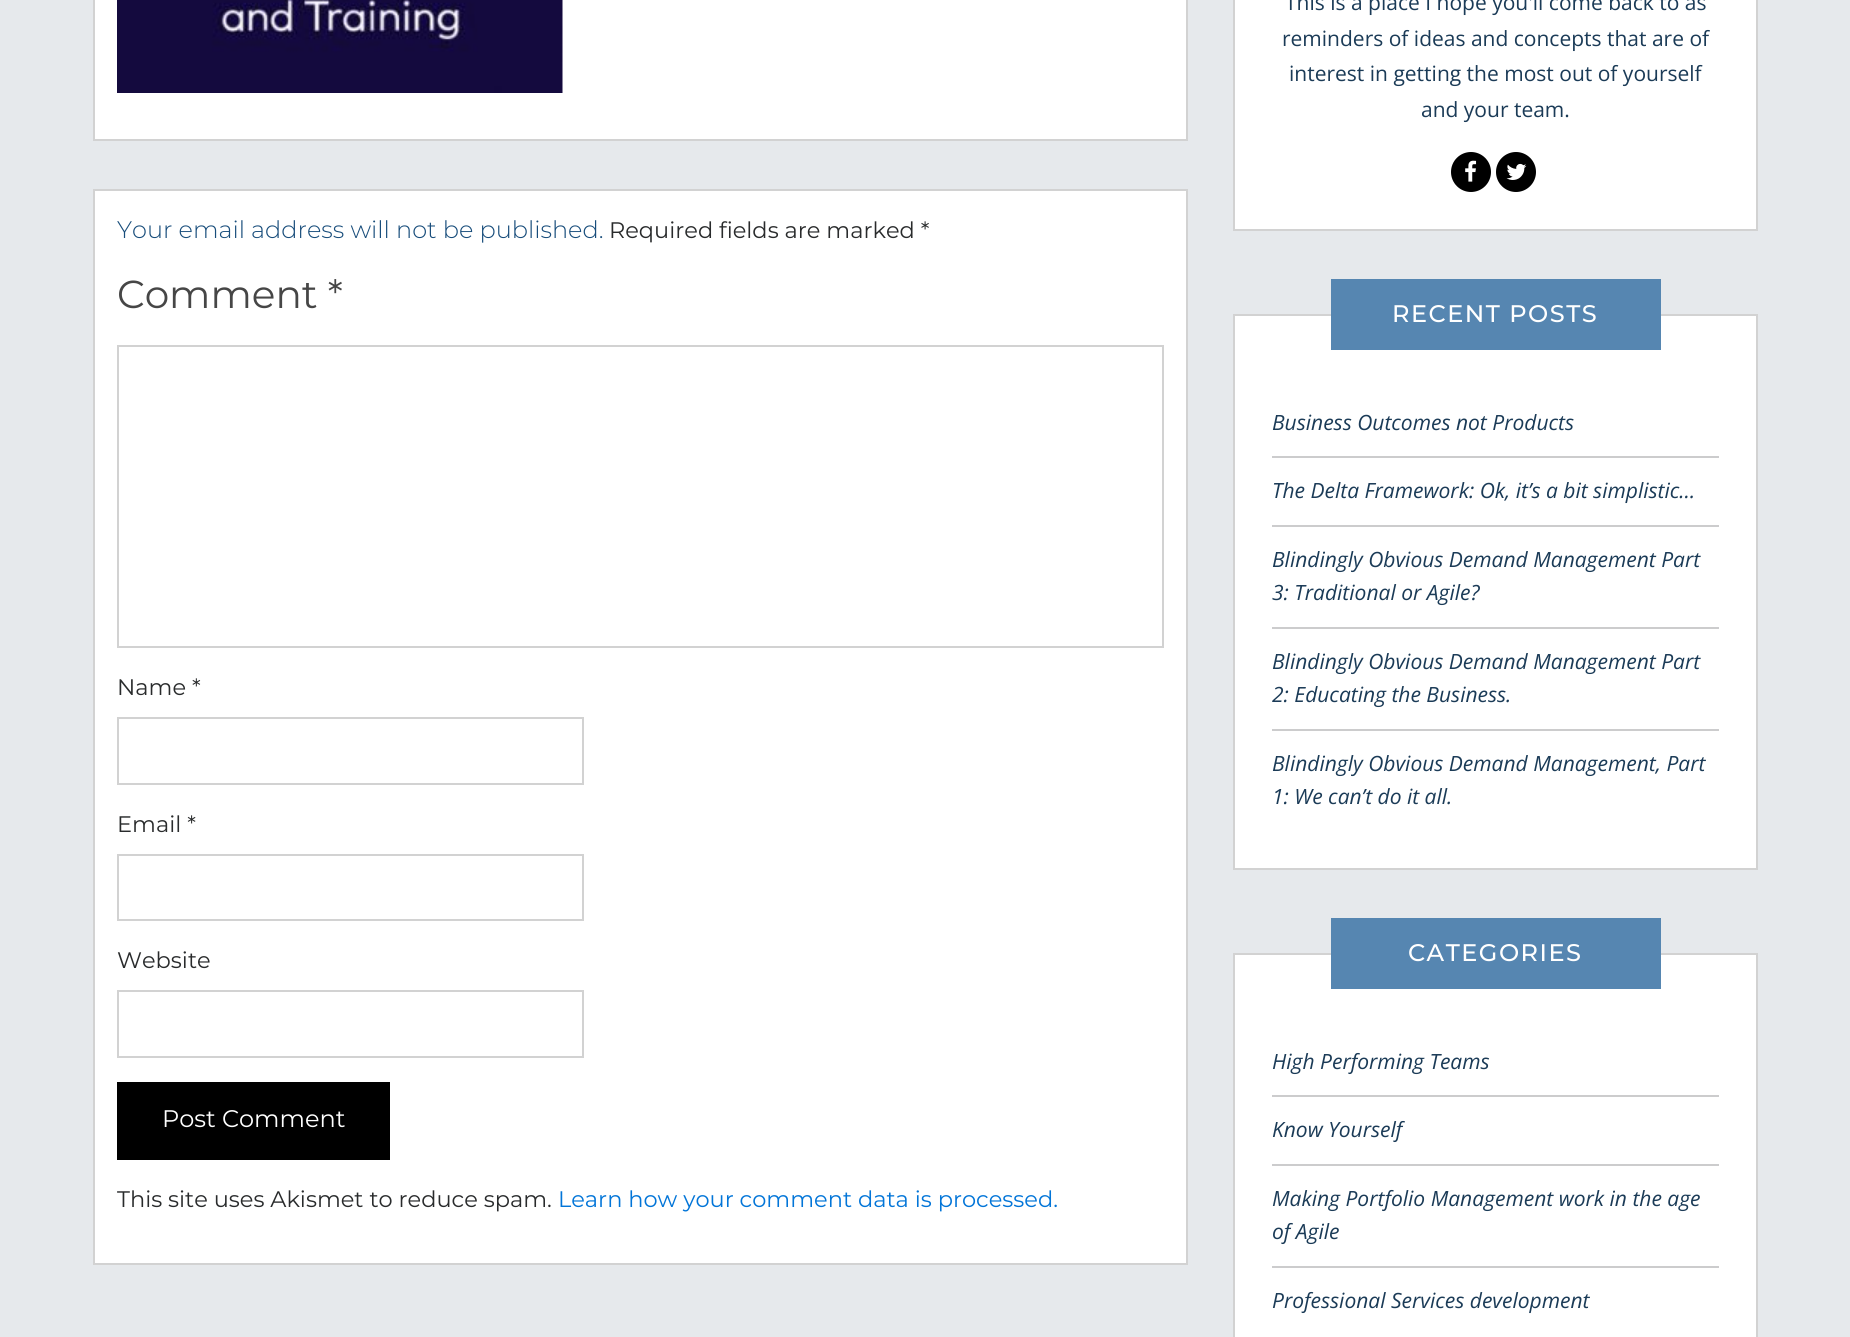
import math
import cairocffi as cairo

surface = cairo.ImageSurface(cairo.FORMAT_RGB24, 1850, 1337)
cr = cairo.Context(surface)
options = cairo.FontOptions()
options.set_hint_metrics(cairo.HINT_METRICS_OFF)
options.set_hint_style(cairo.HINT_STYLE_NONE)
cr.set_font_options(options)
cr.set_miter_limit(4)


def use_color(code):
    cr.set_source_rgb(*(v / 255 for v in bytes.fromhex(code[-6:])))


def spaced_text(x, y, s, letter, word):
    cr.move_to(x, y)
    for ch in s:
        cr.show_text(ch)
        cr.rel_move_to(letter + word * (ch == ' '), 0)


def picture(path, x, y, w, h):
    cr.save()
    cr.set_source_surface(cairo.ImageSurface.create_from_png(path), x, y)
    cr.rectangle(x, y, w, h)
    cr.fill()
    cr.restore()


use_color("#e6e9ec")
cr.paint()
use_color("#ffffff")
cr.rectangle(94, -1, 1093, 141)
cr.fill_preserve()
use_color("#d2d2d2")
cr.stroke()
picture("img1.png", 117, 0, 446, 93)
use_color("#ffffff")
cr.rectangle(94, 190, 1093, 1074)
cr.fill_preserve()
use_color("#d2d2d2")
cr.stroke()
cr.select_font_face("Montserrat Light")
cr.set_font_size(24)
use_color("#184d7b")
cr.move_to(117, 238)
cr.show_text("Your email address will not be published.")
cr.select_font_face("Montserrat")
cr.set_font_size(22.5)
use_color("#292b2c")
cr.move_to(609, 238)
cr.show_text("Required fields are marked *")
cr.set_font_size(39)
use_color("#464646")
cr.move_to(117, 308)
cr.show_text("Comment *")
cr.rectangle(118, 346, 1045, 301)
use_color("#d2d2d2")
cr.stroke()
cr.set_font_size(22.5)
use_color("#292b2c")
cr.move_to(117, 695)
cr.show_text("Name *")
cr.rectangle(118, 718, 465, 66)
use_color("#d2d2d2")
cr.stroke()
use_color("#292b2c")
cr.move_to(117, 832)
cr.show_text("Email *")
cr.rectangle(118, 855, 465, 65)
use_color("#d2d2d2")
cr.stroke()
use_color("#292b2c")
cr.move_to(117, 968)
cr.show_text("Website")
cr.rectangle(118, 991, 465, 66)
use_color("#d2d2d2")
cr.stroke()
use_color("#000000")
cr.rectangle(117, 1082, 273, 78)
cr.fill()
cr.set_font_size(24)
use_color("#ffffff")
cr.move_to(162, 1127)
cr.show_text("Post Comment")
cr.set_font_size(22.5)
use_color("#292b2c")
cr.move_to(117, 1207)
cr.show_text("This site uses Akismet to reduce spam.")
use_color("#0275d8")
cr.move_to(558, 1207)
cr.show_text("Learn how your comment data is processed.")
use_color("#ffffff")
cr.rectangle(1234, -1, 523, 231)
cr.fill_preserve()
use_color("#d2d2d2")
cr.stroke()
cr.select_font_face("Open Sans")
cr.set_font_size(21)
use_color("#1b3b57")
cr.move_to(1285, 10)
cr.show_text("This is a place I hope you'll come back to as")
cr.move_to(1282, 46)
cr.show_text("reminders of ideas and concepts that are of")
cr.move_to(1289, 81)
cr.show_text("interest in getting the most out of yourself")
cr.move_to(1421, 117)
cr.show_text("and your team.")
use_color("#000000")
cr.new_path()
cr.arc(1471, 172, 20, 0, 2 * math.pi)
cr.fill()
picture("img2.png", 1465, 160, 12, 22)
cr.arc(1516, 172, 20, 0, 2 * math.pi)
cr.fill()
picture("img3.png", 1506, 163, 21, 17)
use_color("#ffffff")
cr.rectangle(1234, 315, 523, 554)
cr.fill_preserve()
use_color("#d2d2d2")
cr.stroke()
use_color("#5686b1")
cr.rectangle(1331, 279, 330, 71)
cr.fill()
cr.select_font_face("Montserrat Medium")
cr.set_font_size(24)
use_color("#ffffff")
spaced_text(1392, 322, "RECENT POSTS", 1.5, 0)
use_color("#cccccd")
cr.rectangle(1272, 456, 447, 2)
cr.fill()
cr.select_font_face("Open Sans", cairo.FONT_SLANT_ITALIC)
cr.set_font_size(21)
use_color("#1b3b57")
cr.move_to(1272, 430)
cr.show_text("Business Outcomes not Products")
use_color("#cccccd")
cr.rectangle(1272, 525, 447, 2)
cr.fill()
use_color("#1b3b57")
cr.move_to(1272, 498)
cr.show_text("The Delta Framework: Ok, it’s a bit simplistic…")
use_color("#cccccd")
cr.rectangle(1272, 627, 447, 2)
cr.fill()
use_color("#1b3b57")
cr.move_to(1272, 567)
cr.show_text("Blindingly Obvious Demand Management Part")
cr.move_to(1272, 600)
cr.show_text("3: Traditional or Agile?")
use_color("#cccccd")
cr.rectangle(1272, 729, 447, 2)
cr.fill()
use_color("#1b3b57")
cr.move_to(1272, 669)
cr.show_text("Blindingly Obvious Demand Management Part")
cr.move_to(1272, 702)
cr.show_text("2: Educating the Business.")
cr.move_to(1272, 771)
cr.show_text("Blindingly Obvious Demand Management, Part")
cr.move_to(1272, 804)
cr.show_text("1: We can’t do it all.")
use_color("#ffffff")
cr.rectangle(1234, 954, 523, 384)
cr.fill_preserve()
use_color("#d2d2d2")
cr.stroke()
use_color("#5686b1")
cr.rectangle(1331, 918, 330, 71)
cr.fill()
cr.select_font_face("Montserrat Medium")
cr.set_font_size(24)
use_color("#ffffff")
spaced_text(1408, 961, "CATEGORIES", 1.5, 0)
use_color("#cccccd")
cr.rectangle(1272, 1095, 447, 2)
cr.fill()
cr.select_font_face("Open Sans", cairo.FONT_SLANT_ITALIC)
cr.set_font_size(21)
use_color("#1b3b57")
cr.move_to(1272, 1069)
cr.show_text("High Performing Teams")
use_color("#cccccd")
cr.rectangle(1272, 1164, 447, 2)
cr.fill()
use_color("#1b3b57")
cr.move_to(1272, 1137)
cr.show_text("Know Yourself")
use_color("#cccccd")
cr.rectangle(1272, 1266, 447, 2)
cr.fill()
use_color("#1b3b57")
cr.move_to(1272, 1206)
cr.show_text("Making Portfolio Management work in the age")
cr.move_to(1272, 1239)
cr.show_text("of Agile")
cr.move_to(1272, 1308)
cr.show_text("Professional Services development")
surface.write_to_png("result.png")
